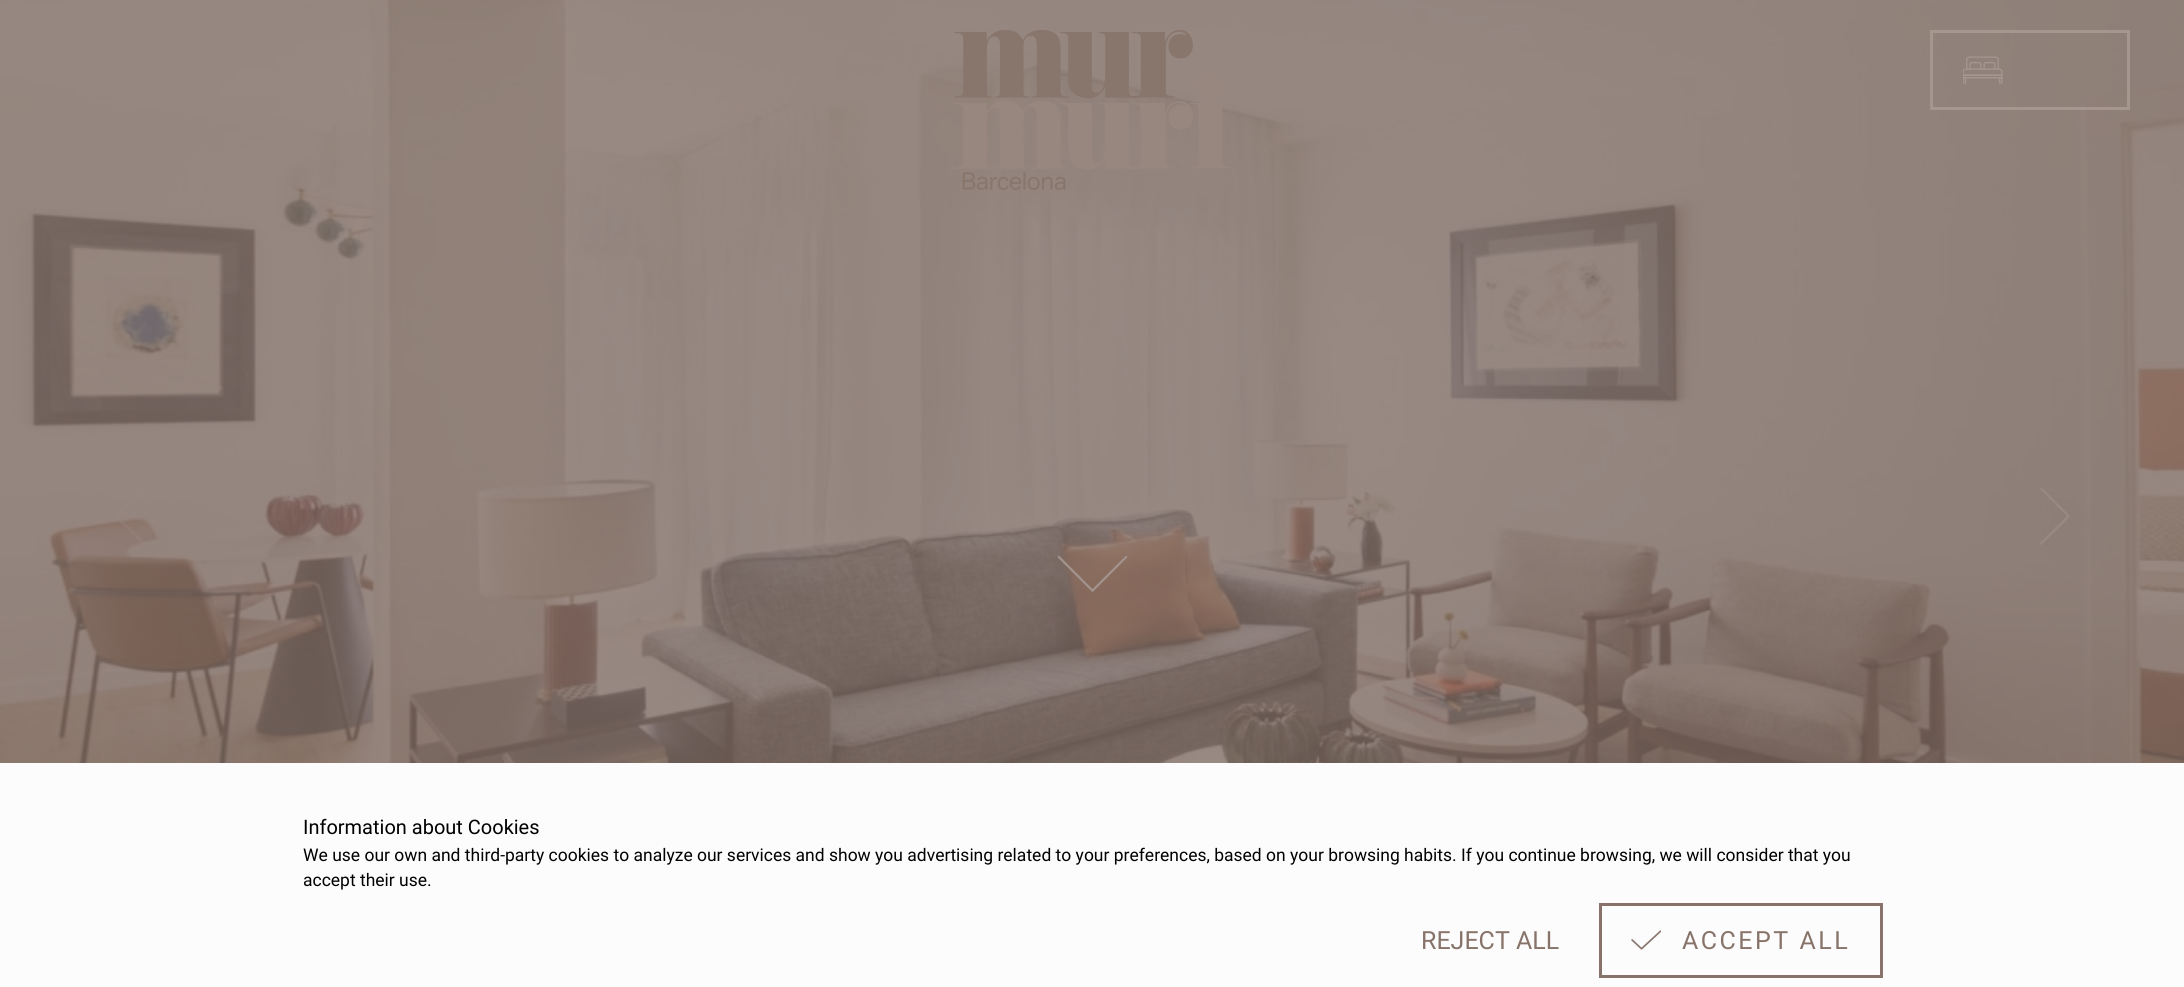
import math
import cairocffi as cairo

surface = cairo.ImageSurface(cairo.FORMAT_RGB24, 2184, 987)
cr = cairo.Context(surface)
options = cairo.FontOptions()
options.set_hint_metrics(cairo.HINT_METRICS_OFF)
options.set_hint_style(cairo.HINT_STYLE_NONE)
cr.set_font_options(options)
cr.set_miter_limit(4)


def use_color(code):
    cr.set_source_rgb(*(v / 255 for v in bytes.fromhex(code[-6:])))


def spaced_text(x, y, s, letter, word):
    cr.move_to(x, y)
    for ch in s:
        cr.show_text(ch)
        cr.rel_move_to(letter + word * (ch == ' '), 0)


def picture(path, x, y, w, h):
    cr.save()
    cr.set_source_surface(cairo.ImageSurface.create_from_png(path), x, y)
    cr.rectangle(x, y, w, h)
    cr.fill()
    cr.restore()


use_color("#ffffff")
cr.paint()
picture("img1.png", 0, 0, 2184, 763)
cr.set_source_rgba(0.8, 0.8, 0.8, 0.35)
cr.new_path()
cr.move_to(144, 545)
cr.line_to(120, 522)
cr.curve_to(114, 515, 114, 517, 120, 511)
cr.line_to(143, 488)
cr.curve_to(143, 487, 144, 488, 145, 488)
cr.curve_to(145, 490, 137, 497, 135, 498)
cr.line_to(118, 516)
cr.line_to(145, 543)
cr.curve_to(145, 544, 145, 545, 144, 545)
cr.close_path()
cr.fill()
use_color("#cccccc")
cr.new_path()
cr.move_to(2041, 545)
cr.curve_to(2040, 545, 2040, 544, 2040, 543)
cr.line_to(2067, 516)
cr.line_to(2040, 489)
cr.curve_to(2040, 488, 2041, 487, 2042, 488)
cr.line_to(2065, 511)
cr.curve_to(2071, 517, 2071, 515, 2065, 522)
cr.close_path()
cr.fill()
picture("img2.png", 954, 30, 277, 160)
cr.rectangle(1931.5, 31.5, 197, 77)
use_color("#ffffff")
cr.set_line_width(3)
cr.stroke()
picture("img3.png", 1963, 56, 40, 28)
picture("img4.png", 1058, 555, 70, 37)
cr.set_source_rgba(0.529, 0.451, 0.412, 0.75)
cr.rectangle(0, 0, 2184, 763)
cr.fill()
use_color("#fcfcfc")
cr.rectangle(0, 763, 2184, 224)
cr.fill()
cr.select_font_face("Roboto")
cr.set_font_size(20)
use_color("#000000")
cr.move_to(303, 834)
cr.show_text("Information about Cookies")
cr.set_font_size(17.5)
cr.move_to(303, 861)
cr.show_text("We use our own and third-party cookies to analyze our services and show you advertising related to your preferences, based on your browsing habits. If you continue browsing, we will consider that you")
cr.move_to(303, 886)
cr.show_text("accept their use.")
cr.set_font_size(25)
use_color("#877369")
cr.move_to(1421, 949)
cr.show_text("REJECT ALL")
cr.rectangle(1600.5, 904.5, 281, 72)
cr.stroke()
picture("img5.png", 1631, 930, 30, 20)
spaced_text(1682, 949, "ACCEPT ALL", 2.5, 0)
surface.write_to_png("result.png")
